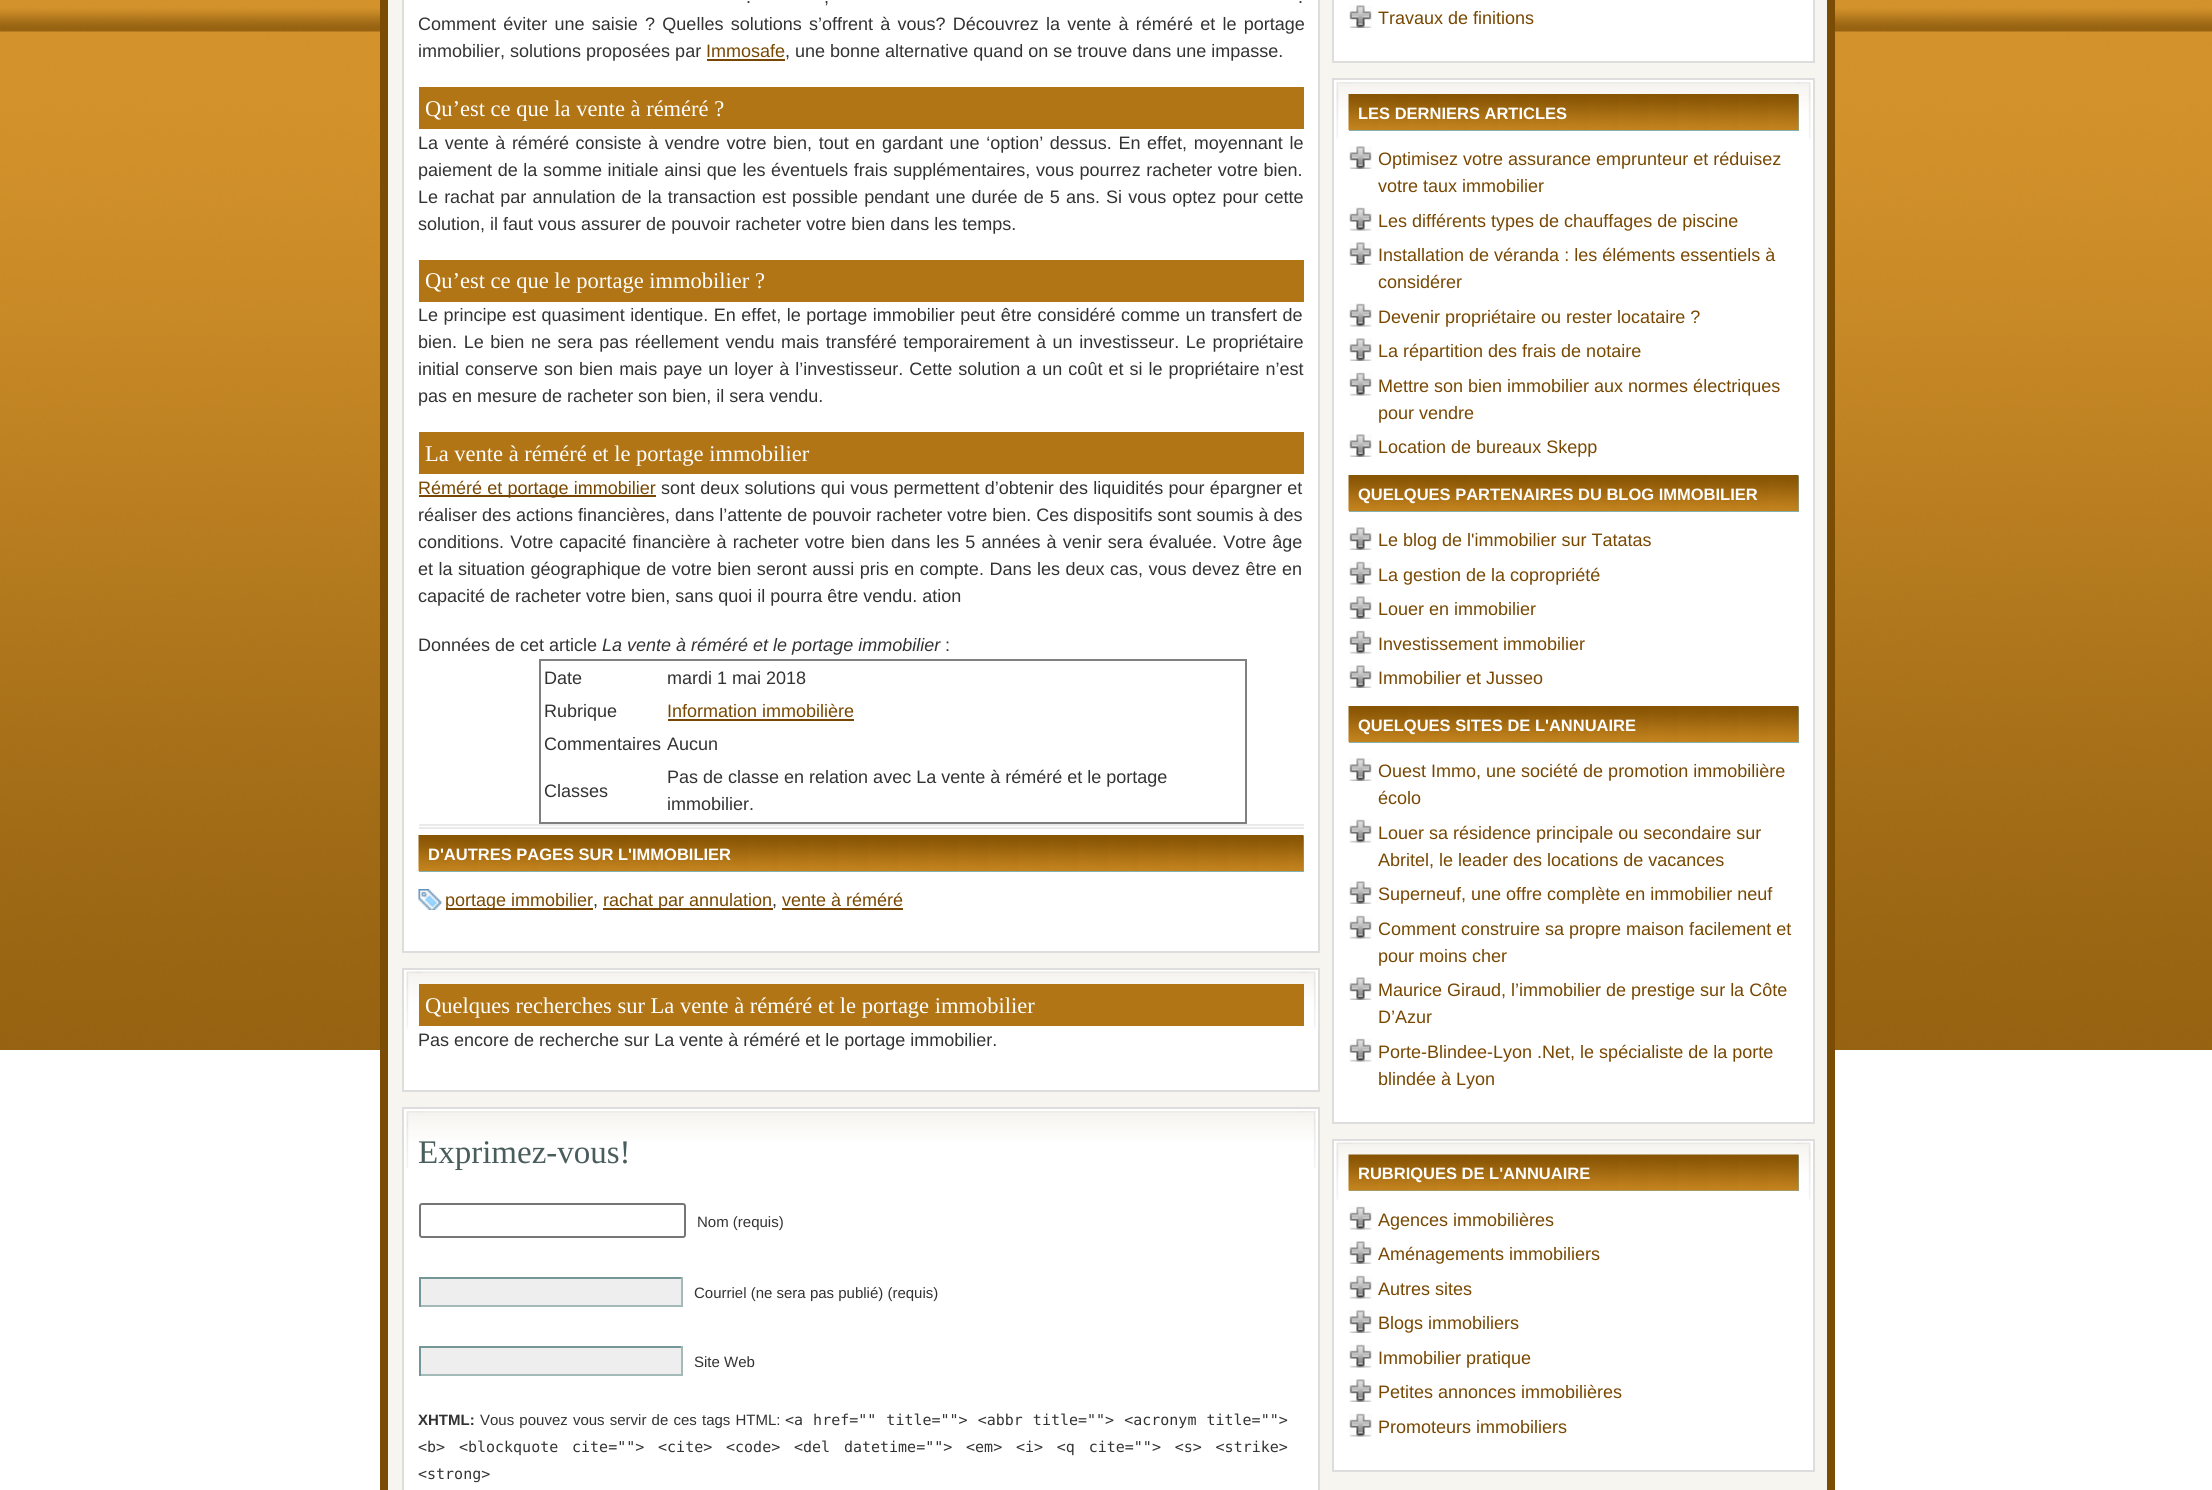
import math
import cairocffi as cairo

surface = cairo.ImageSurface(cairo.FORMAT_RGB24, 2212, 1490)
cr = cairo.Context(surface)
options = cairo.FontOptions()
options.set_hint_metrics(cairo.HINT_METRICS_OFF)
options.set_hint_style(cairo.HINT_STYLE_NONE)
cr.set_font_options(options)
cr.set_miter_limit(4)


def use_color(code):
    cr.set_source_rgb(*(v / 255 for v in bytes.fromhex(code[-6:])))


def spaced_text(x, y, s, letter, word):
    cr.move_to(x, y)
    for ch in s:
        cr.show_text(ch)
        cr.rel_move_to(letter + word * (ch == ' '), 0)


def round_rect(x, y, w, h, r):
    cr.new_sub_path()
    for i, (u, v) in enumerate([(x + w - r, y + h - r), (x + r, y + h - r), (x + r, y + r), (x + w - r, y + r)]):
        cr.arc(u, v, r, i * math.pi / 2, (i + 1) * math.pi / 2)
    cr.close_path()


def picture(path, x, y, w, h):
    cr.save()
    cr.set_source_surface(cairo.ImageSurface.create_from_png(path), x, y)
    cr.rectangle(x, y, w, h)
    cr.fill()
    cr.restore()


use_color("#ffffff")
cr.paint()
picture("img1.png", 0, 0, 2212, 1050)
use_color("#f7f5ef")
cr.rectangle(384, -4, 1447, 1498)
cr.fill_preserve()
use_color("#7b4c03")
cr.set_line_width(8)
cr.stroke()
use_color("#ffffff")
cr.rectangle(403, -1, 916, 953)
cr.fill_preserve()
use_color("#dddddd")
cr.set_line_width(2)
cr.stroke()
cr.select_font_face("Liberation Sans")
cr.set_font_size(18)
use_color("#333333")
cr.move_to(746, 3)
cr.show_text(".")
cr.move_to(824, 3)
cr.show_text(",")
cr.move_to(1298, 3)
cr.show_text(".")
spaced_text(418, 30, "Comment éviter une saisie ? Quelles solutions s’offrent à vous? Découvrez la vente à réméré et le portage", 0, 2.25)
cr.move_to(418, 57)
cr.show_text("immobilier, solutions proposées par")
use_color("#784802")
cr.move_to(706, 57)
cr.show_text("Immosafe")
cr.rectangle(707, 59, 78, 2)
cr.fill()
use_color("#333333")
cr.move_to(785, 57)
cr.show_text(", une bonne alternative quand on se trouve dans une impasse.")
use_color("#b17516")
cr.rectangle(419, 87, 885, 42)
cr.fill()
cr.select_font_face("Liberation Serif")
cr.set_font_size(22.5)
use_color("#ffffff")
cr.move_to(425, 116)
cr.show_text("Qu’est ce que la vente à réméré ?")
cr.select_font_face("Liberation Sans")
cr.set_font_size(18)
use_color("#333333")
spaced_text(418, 149, "La vente à réméré consiste à vendre votre bien, tout en gardant une ‘option’ dessus. En effet, moyennant le", 0, 1.6)
spaced_text(418, 176, "paiement de la somme initiale ainsi que les éventuels frais supplémentaires, vous pourrez racheter votre bien.", 0, 0.6)
spaced_text(418, 203, "Le rachat par annulation de la transaction est possible pendant une durée de 5 ans. Si vous optez pour cette", 0, 1.1)
cr.move_to(418, 230)
cr.show_text("solution, il faut vous assurer de pouvoir racheter votre bien dans les temps.")
use_color("#b17516")
cr.rectangle(419, 260, 885, 42)
cr.fill()
cr.select_font_face("Liberation Serif")
cr.set_font_size(22.5)
use_color("#ffffff")
cr.move_to(425, 288)
cr.show_text("Qu’est ce que le portage immobilier ?")
cr.select_font_face("Liberation Sans")
cr.set_font_size(18)
use_color("#333333")
spaced_text(418, 321, "Le principe est quasiment identique. En effet, le portage immobilier peut être considéré comme un transfert de", 0, 0.5)
spaced_text(418, 348, "bien. Le bien ne sera pas réellement vendu mais transféré temporairement à un investisseur. Le propriétaire", 0, 1.6)
spaced_text(418, 375, "initial conserve son bien mais paye un loyer à l’investisseur. Cette solution a un coût et si le propriétaire n’est", 0, 1)
cr.move_to(418, 402)
cr.show_text("pas en mesure de racheter son bien, il sera vendu.")
use_color("#b17516")
cr.rectangle(419, 432, 885, 42)
cr.fill()
cr.select_font_face("Liberation Serif")
cr.set_font_size(22.5)
use_color("#ffffff")
cr.move_to(425, 461)
cr.show_text("La vente à réméré et le portage immobilier")
use_color("#784802")
cr.rectangle(419, 495, 237, 2)
cr.fill()
cr.select_font_face("Liberation Sans")
cr.set_font_size(18)
spaced_text(418, 494, "Réméré et portage immobilier", 0, 0.25)
use_color("#333333")
spaced_text(661, 494, "sont deux solutions qui vous permettent d’obtenir des liquidités pour épargner et", 0, 0.25)
cr.move_to(418, 521)
cr.show_text("réaliser des actions financières, dans l’attente de pouvoir racheter votre bien. Ces dispositifs sont soumis à des")
spaced_text(418, 548, "conditions. Votre capacité financière à racheter votre bien dans les 5 années à venir sera évaluée. Votre âge", 0, 1.1)
spaced_text(418, 575, "et la situation géographique de votre bien seront aussi pris en compte. Dans les deux cas, vous devez être en", 0, 0.5)
cr.move_to(418, 602)
cr.show_text("capacité de racheter votre bien, sans quoi il pourra être vendu. ation")
cr.move_to(418, 651)
cr.show_text("Données de cet article")
cr.select_font_face("Liberation Sans", cairo.FONT_SLANT_ITALIC)
cr.move_to(602, 651)
cr.show_text("La vente à réméré et le portage immobilier")
cr.select_font_face("Liberation Sans")
cr.move_to(945, 651)
cr.show_text(":")
cr.rectangle(540, 660, 706, 163)
use_color("#808080")
cr.stroke()
use_color("#333333")
cr.move_to(544, 684)
cr.show_text("Date")
cr.move_to(667, 684)
cr.show_text("mardi 1 mai 2018")
cr.move_to(544, 717)
cr.show_text("Rubrique")
use_color("#784802")
cr.move_to(667, 717)
cr.show_text("Information immobilière")
cr.rectangle(668, 719, 186, 2)
cr.fill()
use_color("#333333")
cr.move_to(544, 750)
cr.show_text("Commentaires")
cr.move_to(667, 750)
cr.show_text("Aucun")
cr.move_to(544, 797)
cr.show_text("Classes")
cr.move_to(667, 783)
cr.show_text("Pas de classe en relation avec La vente à réméré et le portage")
cr.move_to(667, 810)
cr.show_text("immobilier.")
use_color("#eaeaea")
cr.rectangle(419, 824, 885, 2)
cr.fill()
cr.rectangle(419, 827, 885, 2)
cr.fill()
use_color("#86afb0")
cr.rectangle(419, 836, 885, 36)
cr.fill()
picture("img2.png", 418, 835, 886, 36)
cr.select_font_face("Liberation Sans", cairo.FONT_SLANT_NORMAL, cairo.FONT_WEIGHT_BOLD)
cr.set_font_size(16.5)
use_color("#ffffff")
cr.move_to(428, 860)
cr.show_text("D'AUTRES PAGES SUR L'IMMOBILIER")
picture("img3.png", 418, 889, 25, 21)
use_color("#784802")
cr.rectangle(446, 908, 147, 2)
cr.fill()
cr.select_font_face("Liberation Sans")
cr.set_font_size(18)
cr.move_to(445, 906)
cr.show_text("portage immobilier")
use_color("#333333")
cr.move_to(593, 906)
cr.show_text(",")
use_color("#784802")
cr.rectangle(603, 908, 170, 2)
cr.fill()
cr.move_to(603, 906)
cr.show_text("rachat par annulation")
use_color("#333333")
cr.move_to(772, 906)
cr.show_text(",")
use_color("#784802")
cr.rectangle(782, 908, 121, 2)
cr.fill()
cr.move_to(782, 906)
cr.show_text("vente à réméré")
use_color("#ffffff")
cr.rectangle(404, 970, 914, 120)
cr.fill()
picture("img4.png", 406, 971, 910, 58)
cr.rectangle(403, 969, 916, 122)
use_color("#dddddd")
cr.stroke()
use_color("#b17516")
cr.rectangle(419, 984, 885, 42)
cr.fill()
cr.select_font_face("Liberation Serif")
cr.set_font_size(22.5)
use_color("#ffffff")
cr.move_to(425, 1013)
cr.show_text("Quelques recherches sur La vente à réméré et le portage immobilier")
cr.select_font_face("Liberation Sans")
cr.set_font_size(18)
use_color("#333333")
cr.move_to(418, 1046)
cr.show_text("Pas encore de recherche sur La vente à réméré et le portage immobilier.")
use_color("#ffffff")
cr.rectangle(404, 1109, 914, 381)
cr.fill()
picture("img5.png", 406, 1111, 910, 57)
cr.rectangle(403, 1108, 916, 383)
use_color("#dddddd")
cr.stroke()
cr.select_font_face("Liberation Serif")
cr.set_font_size(33)
use_color("#495d5c")
cr.move_to(418, 1163)
cr.show_text("Exprimez-vous!")
round_rect(420, 1204, 265, 33, 2)
use_color("#767676")
cr.stroke()
cr.select_font_face("Liberation Sans")
cr.set_font_size(15)
use_color("#333333")
cr.move_to(697, 1227)
cr.show_text("Nom (requis)")
use_color("#eeeeee")
cr.rectangle(421, 1279, 260, 26)
cr.fill()
use_color("#759697")
cr.rectangle(419, 1277, 264, 2)
cr.fill()
use_color("#a3bab9")
cr.rectangle(681, 1277, 2, 30)
cr.fill()
cr.rectangle(419, 1305, 264, 2)
cr.fill()
use_color("#759697")
cr.rectangle(419, 1277, 2, 30)
cr.fill()
use_color("#333333")
cr.move_to(694, 1298)
cr.show_text("Courriel (ne sera pas publié) (requis)")
use_color("#eeeeee")
cr.rectangle(421, 1348, 260, 26)
cr.fill()
use_color("#759697")
cr.rectangle(419, 1346, 264, 2)
cr.fill()
use_color("#a3bab9")
cr.rectangle(681, 1346, 2, 30)
cr.fill()
cr.rectangle(419, 1374, 264, 2)
cr.fill()
use_color("#759697")
cr.rectangle(419, 1346, 2, 30)
cr.fill()
use_color("#333333")
cr.move_to(694, 1367)
cr.show_text("Site Web")
cr.select_font_face("Liberation Sans", cairo.FONT_SLANT_NORMAL, cairo.FONT_WEIGHT_BOLD)
cr.move_to(418, 1425)
cr.show_text("XHTML:")
cr.select_font_face("Liberation Sans")
spaced_text(480, 1425, "Vous pouvez vous servir de ces tags HTML:", 0, 1)
cr.select_font_face("DejaVu Sans Mono")
spaced_text(785, 1425, "<a href=\"\" title=\"\"> <abbr title=\"\"> <acronym title=\"\">", 0, 1)
spaced_text(418, 1452, "<b> <blockquote cite=\"\"> <cite> <code> <del datetime=\"\"> <em> <i> <q cite=\"\"> <s> <strike>", 0, 4.75)
cr.move_to(418, 1479)
cr.show_text("<strong>")
use_color("#ffffff")
cr.rectangle(1333, -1, 481, 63)
cr.fill_preserve()
use_color("#dddddd")
cr.stroke()
picture("img6.png", 1349, 5, 23, 23)
cr.select_font_face("Liberation Sans")
cr.set_font_size(18)
use_color("#784802")
cr.move_to(1378, 24)
cr.show_text("Travaux de finitions")
use_color("#ffffff")
cr.rectangle(1334, 80, 479, 1042)
cr.fill()
picture("img7.png", 1336, 82, 475, 57)
cr.rectangle(1333, 79, 481, 1044)
use_color("#dddddd")
cr.stroke()
use_color("#86afb0")
cr.rectangle(1349, 95, 450, 36)
cr.fill()
picture("img8.png", 1348, 94, 451, 36)
cr.select_font_face("Liberation Sans", cairo.FONT_SLANT_NORMAL, cairo.FONT_WEIGHT_BOLD)
cr.set_font_size(16.5)
use_color("#ffffff")
cr.move_to(1358, 119)
cr.show_text("LES DERNIERS ARTICLES")
picture("img6.png", 1349, 146, 23, 23)
cr.select_font_face("Liberation Sans")
cr.set_font_size(18)
use_color("#784802")
cr.move_to(1378, 165)
cr.show_text("Optimisez votre assurance emprunteur et réduisez")
cr.move_to(1378, 192)
cr.show_text("votre taux immobilier")
picture("img9.png", 1349, 207, 23, 24)
cr.move_to(1378, 227)
cr.show_text("Les différents types de chauffages de piscine")
picture("img6.png", 1349, 242, 23, 23)
cr.move_to(1378, 261)
cr.show_text("Installation de véranda : les éléments essentiels à")
cr.move_to(1378, 288)
cr.show_text("considérer")
picture("img9.png", 1349, 303, 23, 24)
cr.move_to(1378, 323)
cr.show_text("Devenir propriétaire ou rester locataire ?")
picture("img6.png", 1349, 338, 23, 23)
cr.move_to(1378, 357)
cr.show_text("La répartition des frais de notaire")
picture("img9.png", 1349, 372, 23, 24)
cr.move_to(1378, 392)
cr.show_text("Mettre son bien immobilier aux normes électriques")
cr.move_to(1378, 419)
cr.show_text("pour vendre")
picture("img6.png", 1349, 434, 23, 23)
cr.move_to(1378, 453)
cr.show_text("Location de bureaux Skepp")
use_color("#86afb0")
cr.rectangle(1349, 476, 450, 36)
cr.fill()
picture("img10.png", 1348, 475, 451, 36)
cr.select_font_face("Liberation Sans", cairo.FONT_SLANT_NORMAL, cairo.FONT_WEIGHT_BOLD)
cr.set_font_size(16.5)
use_color("#ffffff")
cr.move_to(1358, 500)
cr.show_text("QUELQUES PARTENAIRES DU BLOG IMMOBILIER")
picture("img6.png", 1349, 527, 23, 23)
cr.select_font_face("Liberation Sans")
cr.set_font_size(18)
use_color("#784802")
cr.move_to(1378, 546)
cr.show_text("Le blog de l'immobilier sur Tatatas")
picture("img9.png", 1349, 561, 23, 24)
cr.move_to(1378, 581)
cr.show_text("La gestion de la copropriété")
picture("img6.png", 1349, 596, 23, 23)
cr.move_to(1378, 615)
cr.show_text("Louer en immobilier")
picture("img9.png", 1349, 630, 23, 24)
cr.move_to(1378, 650)
cr.show_text("Investissement immobilier")
picture("img6.png", 1349, 665, 23, 23)
cr.move_to(1378, 684)
cr.show_text("Immobilier et Jusseo")
use_color("#86afb0")
cr.rectangle(1349, 707, 450, 36)
cr.fill()
picture("img11.png", 1348, 706, 451, 36)
cr.select_font_face("Liberation Sans", cairo.FONT_SLANT_NORMAL, cairo.FONT_WEIGHT_BOLD)
cr.set_font_size(16.5)
use_color("#ffffff")
cr.move_to(1358, 731)
cr.show_text("QUELQUES SITES DE L'ANNUAIRE")
picture("img6.png", 1349, 758, 23, 23)
cr.select_font_face("Liberation Sans")
cr.set_font_size(18)
use_color("#784802")
cr.move_to(1378, 777)
cr.show_text("Ouest Immo, une société de promotion immobilière")
cr.move_to(1378, 804)
cr.show_text("écolo")
picture("img9.png", 1349, 819, 23, 24)
cr.move_to(1378, 839)
cr.show_text("Louer sa résidence principale ou secondaire sur")
cr.move_to(1378, 866)
cr.show_text("Abritel, le leader des locations de vacances")
picture("img6.png", 1349, 881, 23, 23)
cr.move_to(1378, 900)
cr.show_text("Superneuf, une offre complète en immobilier neuf")
picture("img9.png", 1349, 915, 23, 24)
cr.move_to(1378, 935)
cr.show_text("Comment construire sa propre maison facilement et")
cr.move_to(1378, 962)
cr.show_text("pour moins cher")
picture("img6.png", 1349, 977, 23, 23)
cr.move_to(1378, 996)
cr.show_text("Maurice Giraud, l’immobilier de prestige sur la Côte")
cr.move_to(1378, 1023)
cr.show_text("D’Azur")
picture("img9.png", 1349, 1038, 23, 24)
cr.move_to(1378, 1058)
cr.show_text("Porte-Blindee-Lyon .Net, le spécialiste de la porte")
cr.move_to(1378, 1085)
cr.show_text("blindée à Lyon")
use_color("#ffffff")
cr.rectangle(1334, 1141, 479, 329)
cr.fill()
picture("img12.png", 1336, 1142, 475, 58)
cr.rectangle(1333, 1140, 481, 331)
use_color("#dddddd")
cr.stroke()
use_color("#86afb0")
cr.rectangle(1349, 1155, 450, 36)
cr.fill()
picture("img13.png", 1348, 1154, 451, 37)
cr.select_font_face("Liberation Sans", cairo.FONT_SLANT_NORMAL, cairo.FONT_WEIGHT_BOLD)
cr.set_font_size(16.5)
use_color("#ffffff")
cr.move_to(1358, 1179)
cr.show_text("RUBRIQUES DE L'ANNUAIRE")
picture("img9.png", 1349, 1206, 23, 24)
cr.select_font_face("Liberation Sans")
cr.set_font_size(18)
use_color("#784802")
cr.move_to(1378, 1226)
cr.show_text("Agences immobilières")
picture("img6.png", 1349, 1241, 23, 23)
cr.move_to(1378, 1260)
cr.show_text("Aménagements immobiliers")
picture("img9.png", 1349, 1275, 23, 24)
cr.move_to(1378, 1295)
cr.show_text("Autres sites")
picture("img6.png", 1349, 1310, 23, 23)
cr.move_to(1378, 1329)
cr.show_text("Blogs immobiliers")
picture("img9.png", 1349, 1344, 23, 24)
cr.move_to(1378, 1364)
cr.show_text("Immobilier pratique")
picture("img6.png", 1349, 1379, 23, 23)
cr.move_to(1378, 1398)
cr.show_text("Petites annonces immobilières")
picture("img9.png", 1349, 1413, 23, 24)
cr.move_to(1378, 1433)
cr.show_text("Promoteurs immobiliers")
surface.write_to_png("result.png")
